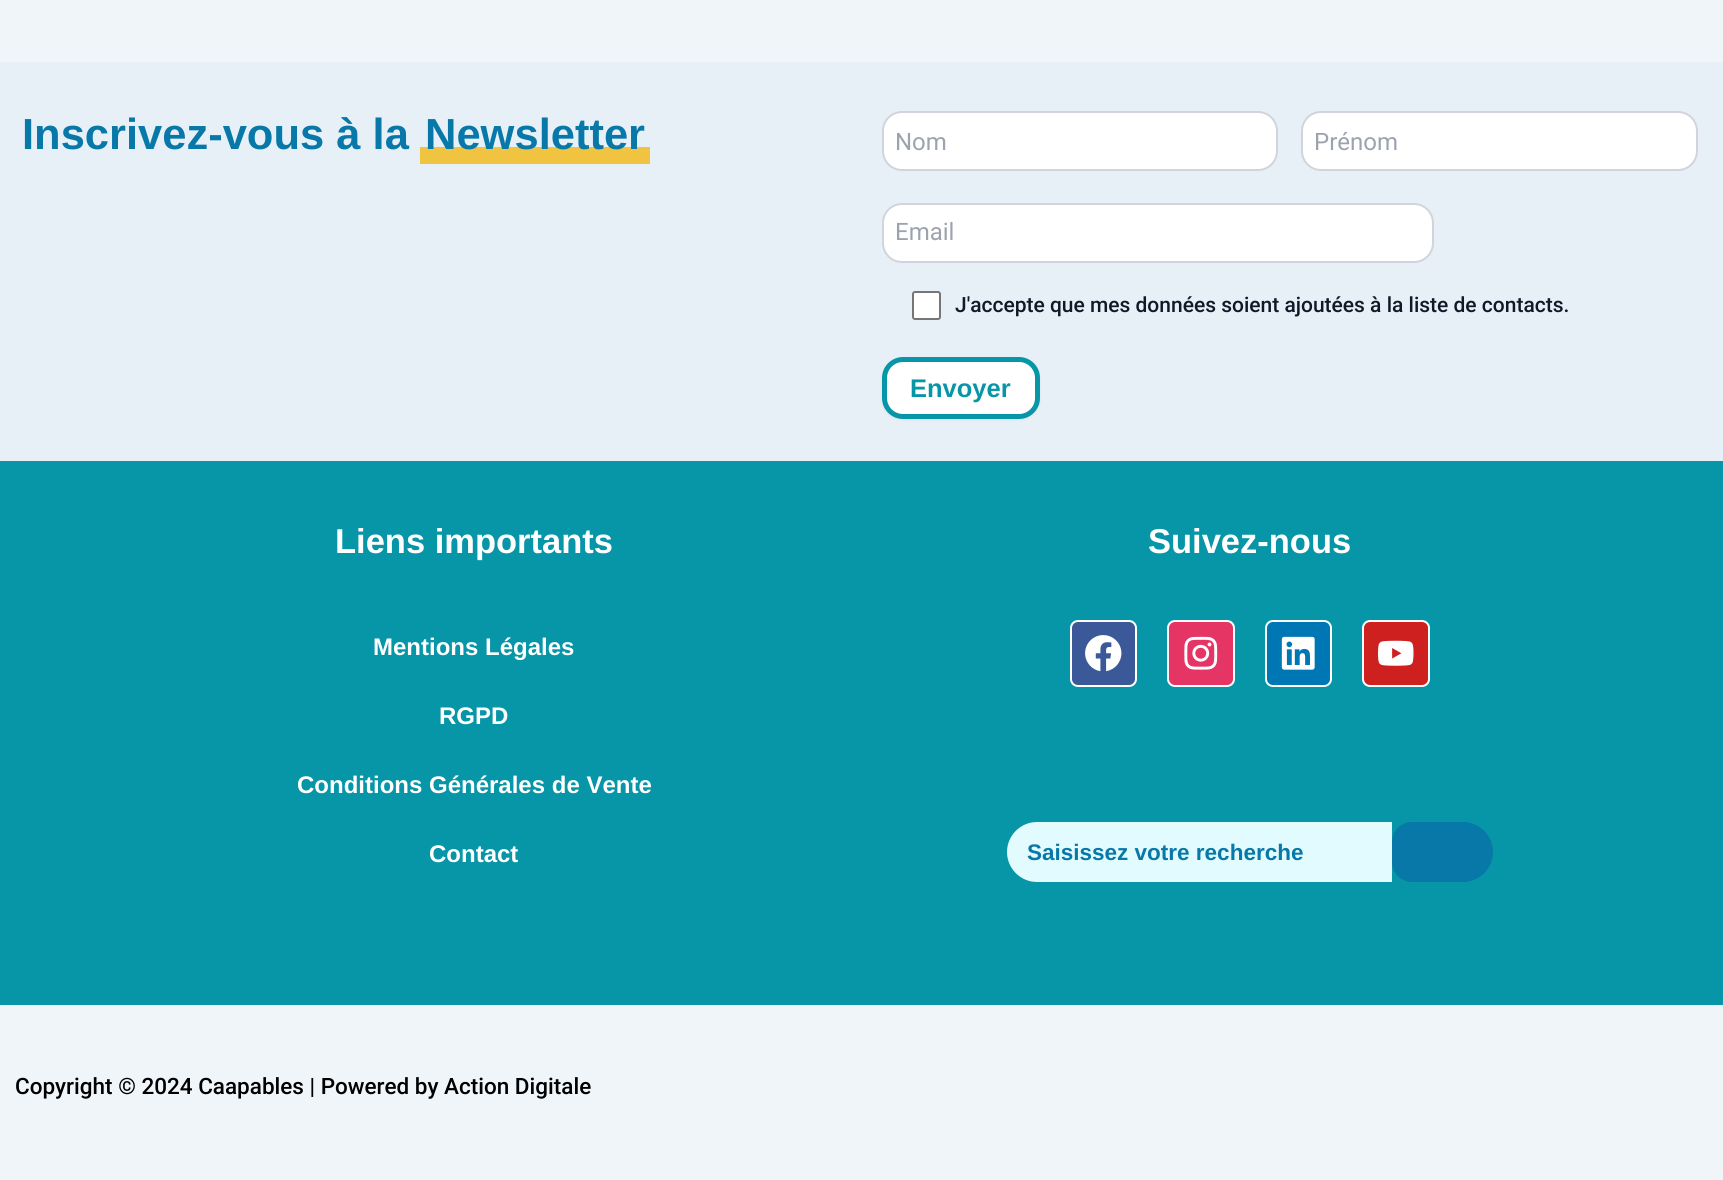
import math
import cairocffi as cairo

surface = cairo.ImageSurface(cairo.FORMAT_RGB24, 1723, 1180)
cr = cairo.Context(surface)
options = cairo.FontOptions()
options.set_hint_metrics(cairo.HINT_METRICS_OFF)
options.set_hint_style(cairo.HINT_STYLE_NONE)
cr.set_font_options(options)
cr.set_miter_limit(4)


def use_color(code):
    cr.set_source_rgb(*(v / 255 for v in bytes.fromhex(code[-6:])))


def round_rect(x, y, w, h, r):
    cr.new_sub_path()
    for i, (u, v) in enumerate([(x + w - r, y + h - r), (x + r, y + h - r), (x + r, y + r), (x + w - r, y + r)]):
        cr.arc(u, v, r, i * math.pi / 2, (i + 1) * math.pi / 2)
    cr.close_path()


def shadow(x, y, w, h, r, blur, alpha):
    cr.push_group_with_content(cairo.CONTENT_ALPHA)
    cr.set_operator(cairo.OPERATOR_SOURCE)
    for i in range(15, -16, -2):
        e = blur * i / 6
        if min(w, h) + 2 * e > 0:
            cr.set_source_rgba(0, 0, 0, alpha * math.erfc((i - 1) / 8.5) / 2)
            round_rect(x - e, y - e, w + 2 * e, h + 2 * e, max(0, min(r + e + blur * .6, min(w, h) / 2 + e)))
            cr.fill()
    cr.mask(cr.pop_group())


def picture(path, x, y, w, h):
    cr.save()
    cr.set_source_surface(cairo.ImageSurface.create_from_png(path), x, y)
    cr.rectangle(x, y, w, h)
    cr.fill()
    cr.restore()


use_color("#f0f5fa")
cr.paint()
use_color("#e7f0f7")
cr.rectangle(0, 62, 1723, 399)
cr.fill()
cr.select_font_face("Liberation Sans", cairo.FONT_SLANT_NORMAL, cairo.FONT_WEIGHT_BOLD)
cr.set_font_size(43.5)
use_color("#0778a8")
cr.move_to(22, 149)
cr.show_text("Inscrivez-vous à la")
use_color("#f0c341")
cr.rectangle(420, 147, 230, 17)
cr.fill()
use_color("#0778a8")
cr.move_to(425, 149)
cr.show_text("Newsletter")
use_color("#ffffff")
round_rect(883, 112, 394, 58, 19)
cr.fill_preserve()
use_color("#d1d5db")
cr.stroke()
cr.select_font_face("Roboto")
cr.set_font_size(24)
use_color("#9ca3af")
cr.move_to(895, 150)
cr.show_text("Nom")
use_color("#ffffff")
round_rect(1302, 112, 395, 58, 19)
cr.fill_preserve()
use_color("#d1d5db")
cr.stroke()
use_color("#9ca3af")
cr.move_to(1314, 150)
cr.show_text("Prénom")
use_color("#ffffff")
round_rect(883, 204, 550, 58, 19)
cr.fill_preserve()
use_color("#d1d5db")
cr.stroke()
use_color("#9ca3af")
cr.move_to(895, 240)
cr.show_text("Email")
use_color("#ffffff")
round_rect(913, 292, 27, 27, 2)
cr.fill_preserve()
use_color("#767676")
cr.stroke()
cr.select_font_face("Roboto Medium")
cr.set_font_size(21)
use_color("#111827")
cr.move_to(955, 312)
cr.show_text("J'accepte que mes données soient ajoutées à la liste de contacts.")
use_color("#000000")
shadow(882, 359, 158, 61, 21, 1.5, 0.05)
use_color("#ffffff")
round_rect(884.5, 359.5, 153, 57, 18.5)
cr.fill_preserve()
use_color("#0795a8")
cr.set_line_width(5)
cr.stroke()
cr.select_font_face("Liberation Sans", cairo.FONT_SLANT_NORMAL, cairo.FONT_WEIGHT_BOLD)
cr.set_font_size(25.5)
cr.move_to(910, 397)
cr.show_text("Envoyer")
cr.rectangle(0, 461, 1723, 544)
cr.fill()
cr.set_font_size(34.5)
use_color("#ffffff")
cr.move_to(335, 553)
cr.show_text("Liens importants")
cr.set_font_size(24)
cr.move_to(373, 655)
cr.show_text("Mentions Légales")
cr.move_to(439, 724)
cr.show_text("RGPD")
cr.move_to(297, 793)
cr.show_text("Conditions Générales de Vente")
cr.move_to(429, 862)
cr.show_text("Contact")
cr.set_font_size(34.5)
cr.move_to(1148, 553)
cr.show_text("Suivez-nous")
use_color("#3b5998")
round_rect(1071, 621, 65, 65, 7)
cr.fill_preserve()
use_color("#ffffff")
cr.set_line_width(2)
cr.stroke()
picture("img1.png", 1085, 635, 37, 37)
use_color("#e53565")
round_rect(1168, 621, 66, 65, 7)
cr.fill_preserve()
use_color("#ffffff")
cr.stroke()
picture("img2.png", 1184, 636, 34, 34)
use_color("#0077b5")
round_rect(1266, 621, 65, 65, 7)
cr.fill_preserve()
use_color("#ffffff")
cr.stroke()
picture("img3.png", 1281, 636, 34, 34)
use_color("#cd201f")
round_rect(1363, 621, 66, 65, 7)
cr.fill_preserve()
use_color("#ffffff")
cr.stroke()
picture("img4.png", 1378, 640, 36, 26)
use_color("#e1fbff")
cr.new_path()
cr.move_to(1037, 822)
cr.line_to(1392, 822)
cr.line_to(1392, 882)
cr.line_to(1037, 882)
cr.curve_to(1020.5, 882, 1007, 868.5, 1007, 852)
cr.curve_to(1007, 835.5, 1020.5, 822, 1037, 822)
cr.close_path()
cr.fill()
cr.set_font_size(22.5)
use_color("#0778a8")
cr.move_to(1027, 860)
cr.show_text("Saisissez votre recherche")
cr.new_path()
cr.move_to(1412, 822)
cr.line_to(1463, 822)
cr.curve_to(1479.5, 822, 1493, 835.5, 1493, 852)
cr.curve_to(1493, 868.5, 1479.5, 882, 1463, 882)
cr.line_to(1412, 882)
cr.curve_to(1401, 882, 1392, 873, 1392, 862)
cr.line_to(1392, 842)
cr.curve_to(1392, 831, 1401, 822, 1412, 822)
cr.close_path()
cr.fill()
cr.select_font_face("Roboto Medium")
use_color("#000000")
cr.move_to(15, 1094)
cr.show_text("Copyright © 2024 Caapables | Powered by Action Digitale")
surface.write_to_png("result.png")
